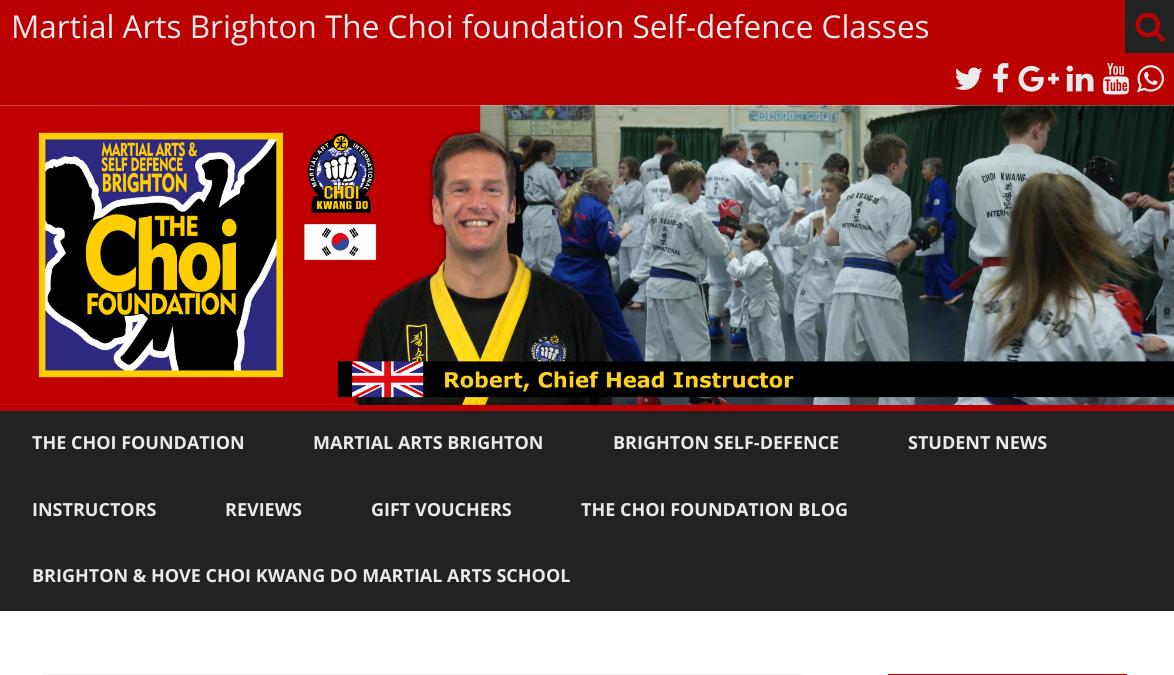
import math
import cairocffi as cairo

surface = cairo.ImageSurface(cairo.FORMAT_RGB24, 1174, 675)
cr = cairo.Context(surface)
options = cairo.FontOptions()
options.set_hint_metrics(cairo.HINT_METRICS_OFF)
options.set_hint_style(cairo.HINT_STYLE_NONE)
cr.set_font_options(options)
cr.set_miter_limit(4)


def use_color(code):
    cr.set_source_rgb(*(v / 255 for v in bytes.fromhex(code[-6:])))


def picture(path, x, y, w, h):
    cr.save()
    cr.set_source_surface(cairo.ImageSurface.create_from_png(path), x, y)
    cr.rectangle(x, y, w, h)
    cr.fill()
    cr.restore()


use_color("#ffffff")
cr.paint()
use_color("#ba0000")
cr.rectangle(0, 0, 1174, 105)
cr.fill()
cr.select_font_face("Open Sans")
cr.set_font_size(31.5)
use_color("#eaeaea")
cr.move_to(11, 38)
cr.show_text("Martial Arts Brighton The Choi foundation Self-defence Classes")
use_color("#222222")
cr.rectangle(1125, 0, 49, 53)
cr.fill()
picture("img1.png", 1135, 12, 30, 30)
picture("img2.png", 955, 67, 28, 23)
picture("img3.png", 993, 63, 16, 30)
picture("img4.png", 1018, 65, 41, 27)
picture("img5.png", 1066, 65, 28, 27)
picture("img6.png", 1103, 63, 26, 32)
picture("img7.png", 1137, 65, 27, 28)
use_color("#ba0000")
cr.rectangle(0, 405, 1174, 6)
cr.fill()
picture("img8.png", 0, 105, 1174, 300)
use_color("#222222")
cr.rectangle(0, 411, 1174, 200)
cr.fill()
cr.select_font_face("Open Sans", cairo.FONT_SLANT_NORMAL, cairo.FONT_WEIGHT_BOLD)
cr.set_font_size(18)
use_color("#eaeaea")
cr.move_to(32, 449)
cr.show_text("THE CHOI FOUNDATION")
cr.move_to(313, 449)
cr.show_text("MARTIAL ARTS BRIGHTON")
cr.move_to(613, 449)
cr.show_text("BRIGHTON SELF-DEFENCE")
cr.move_to(908, 449)
cr.show_text("STUDENT NEWS")
cr.move_to(32, 516)
cr.show_text("INSTRUCTORS")
cr.move_to(225, 516)
cr.show_text("REVIEWS")
cr.move_to(371, 516)
cr.show_text("GIFT VOUCHERS")
cr.move_to(581, 516)
cr.show_text("THE CHOI FOUNDATION BLOG")
cr.move_to(32, 582)
cr.show_text("BRIGHTON & HOVE CHOI KWANG DO MARTIAL ARTS SCHOOL")
use_color("#f2f2f2")
cr.rectangle(42, 674, 762, 1)
cr.fill()
use_color("#ba0000")
cr.rectangle(888, 674, 239, 1)
cr.fill()
surface.write_to_png("result.png")
